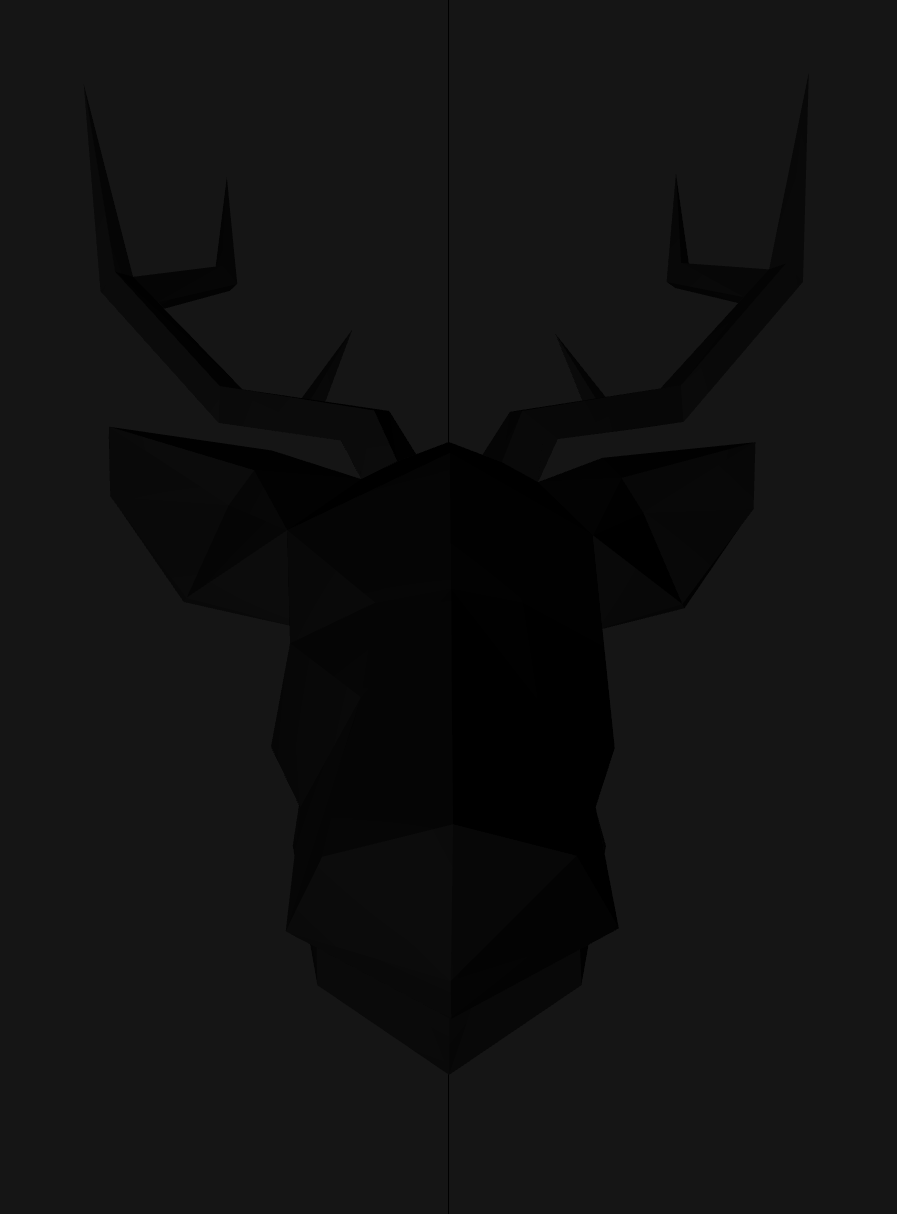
import math
import cairocffi as cairo

surface = cairo.ImageSurface(cairo.FORMAT_RGB24, 897, 1214)
cr = cairo.Context(surface)
options = cairo.FontOptions()
options.set_hint_metrics(cairo.HINT_METRICS_OFF)
options.set_hint_style(cairo.HINT_STYLE_NONE)
cr.set_font_options(options)
cr.set_miter_limit(4)


def use_color(code):
    cr.set_source_rgb(*(v / 255 for v in bytes.fromhex(code[-6:])))


def picture(path, x, y, w, h):
    cr.save()
    cr.set_source_surface(cairo.ImageSurface.create_from_png(path), x, y)
    cr.rectangle(x, y, w, h)
    cr.fill()
    cr.restore()


use_color("#ffffff")
cr.paint()
picture("img1.png", 0, 0, 897, 1214)
surface.write_to_png("result.png")
